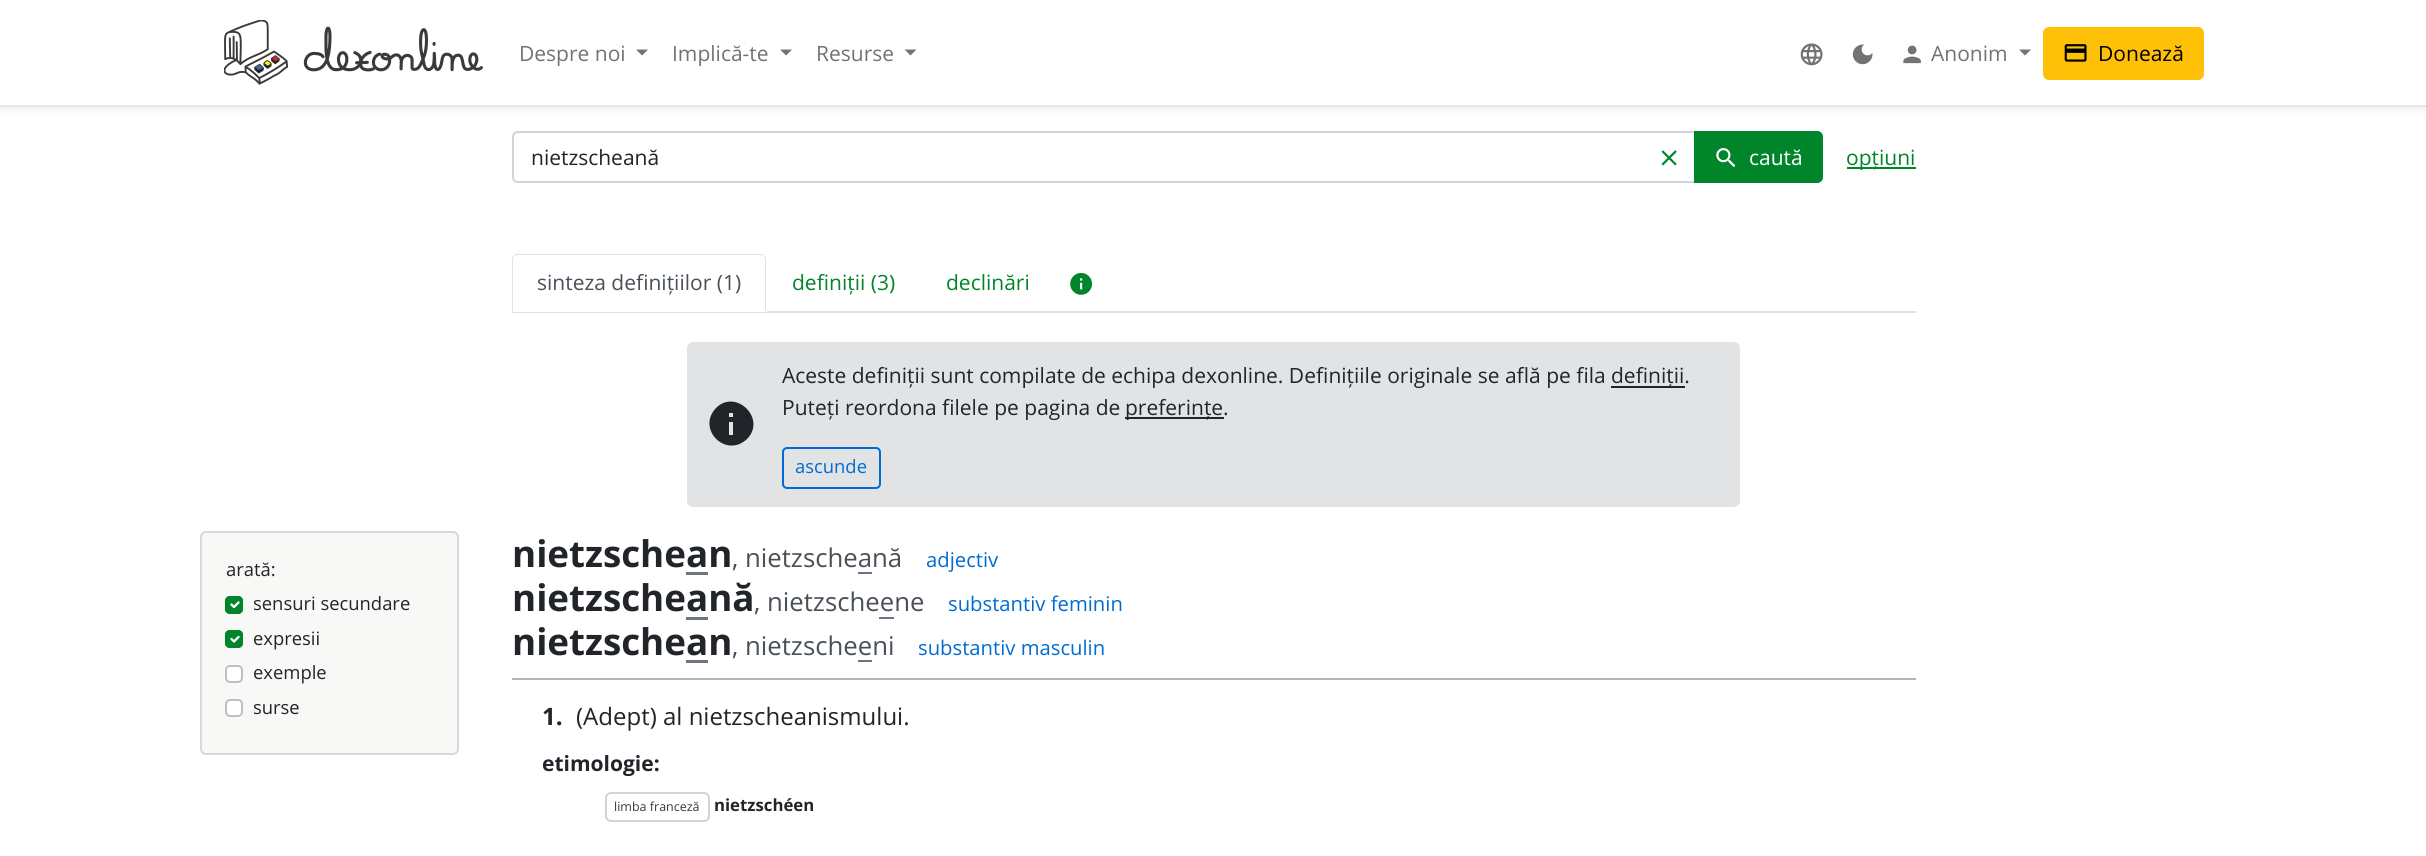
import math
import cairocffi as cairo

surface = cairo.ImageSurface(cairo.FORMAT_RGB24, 2426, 856)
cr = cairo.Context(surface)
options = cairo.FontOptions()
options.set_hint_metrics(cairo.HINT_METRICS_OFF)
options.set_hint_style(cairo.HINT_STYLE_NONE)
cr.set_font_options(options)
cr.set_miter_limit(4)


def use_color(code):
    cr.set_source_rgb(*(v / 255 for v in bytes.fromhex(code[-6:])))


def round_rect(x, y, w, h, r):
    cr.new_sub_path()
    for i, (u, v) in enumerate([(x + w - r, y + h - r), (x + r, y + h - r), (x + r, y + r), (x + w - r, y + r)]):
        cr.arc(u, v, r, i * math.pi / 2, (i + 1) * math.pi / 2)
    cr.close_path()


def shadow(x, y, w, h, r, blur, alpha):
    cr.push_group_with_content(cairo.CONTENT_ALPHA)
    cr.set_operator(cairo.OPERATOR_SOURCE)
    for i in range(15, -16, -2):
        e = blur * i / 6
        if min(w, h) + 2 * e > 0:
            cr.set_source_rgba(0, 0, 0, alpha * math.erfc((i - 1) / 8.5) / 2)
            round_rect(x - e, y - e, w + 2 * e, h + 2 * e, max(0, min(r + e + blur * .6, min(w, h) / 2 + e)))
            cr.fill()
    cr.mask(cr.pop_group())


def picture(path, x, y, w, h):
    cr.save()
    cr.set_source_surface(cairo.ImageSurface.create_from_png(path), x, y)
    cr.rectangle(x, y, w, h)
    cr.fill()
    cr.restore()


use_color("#ffffff")
cr.paint()
use_color("#000000")
shadow(0, 0, 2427, 107, 0, 6, 0.1)
use_color("#ffffff")
cr.rectangle(0, 0, 2426, 105)
cr.fill()
use_color("#e8e8e8")
cr.rectangle(0, 105, 2426, 2)
cr.fill()
picture("img1.png", 224, 20, 259, 65)
cr.select_font_face("Open Sans")
cr.set_font_size(21)
use_color("#737373")
cr.move_to(519, 61)
cr.show_text("Despre noi")
cr.new_path()
cr.move_to(636, 49.5)
cr.line_to(648, 49.5)
cr.line_to(642, 55.5)
cr.close_path()
cr.fill()
cr.move_to(672, 61)
cr.show_text("Implică-te")
cr.new_path()
cr.move_to(780, 49.5)
cr.line_to(792, 49.5)
cr.line_to(786, 55.5)
cr.close_path()
cr.fill()
cr.move_to(816, 61)
cr.show_text("Resurse")
cr.new_path()
cr.move_to(904.5, 49.5)
cr.line_to(916.5, 49.5)
cr.line_to(910.5, 55.5)
cr.close_path()
cr.fill()
picture("img2.png", 1800, 43, 23, 23)
picture("img3.png", 1852, 44, 21, 21)
picture("img4.png", 1903, 45, 18, 19)
cr.move_to(1931, 61)
cr.show_text("Anonim")
cr.new_path()
cr.move_to(2019, 49.5)
cr.line_to(2031, 49.5)
cr.line_to(2025, 55.5)
cr.close_path()
cr.fill()
use_color("#ffc107")
round_rect(2044, 28, 159, 51, 5)
cr.fill_preserve()
cr.stroke()
picture("img5.png", 2064, 44, 23, 18)
use_color("#000000")
cr.move_to(2098, 61)
cr.show_text("Donează")
cr.new_path()
cr.move_to(518, 132)
cr.line_to(1696, 132)
cr.line_to(1696, 182)
cr.line_to(518, 182)
cr.curve_to(515, 182, 513, 180, 513, 177)
cr.line_to(513, 137)
cr.curve_to(513, 134, 515, 132, 518, 132)
cr.close_path()
use_color("#ced4da")
cr.stroke()
use_color("#212529")
cr.move_to(531, 165)
cr.show_text("nietzscheană")
picture("img6.png", 1661, 150, 16, 16)
use_color("#00852a")
cr.new_path()
cr.move_to(1695, 132)
cr.line_to(1817, 132)
cr.curve_to(1820, 132, 1822, 134, 1822, 137)
cr.line_to(1822, 177)
cr.curve_to(1822, 180, 1820, 182, 1817, 182)
cr.line_to(1695, 182)
cr.close_path()
cr.fill_preserve()
cr.stroke()
picture("img7.png", 1716, 148, 20, 20)
use_color("#ffffff")
cr.move_to(1749, 165)
cr.show_text("caută")
use_color("#00852a")
cr.rectangle(1847, 167, 69, 2)
cr.fill()
cr.move_to(1846, 165)
cr.show_text("opțiuni")
use_color("#dee2e6")
cr.rectangle(512, 311, 1404, 2)
cr.fill()
use_color("#ffffff")
cr.new_path()
cr.move_to(518, 254)
cr.line_to(761, 254)
cr.curve_to(764.5, 254, 767, 256.5, 767, 260)
cr.line_to(767, 312)
cr.line_to(512, 312)
cr.line_to(512, 260)
cr.curve_to(512, 256.5, 514.5, 254, 518, 254)
cr.close_path()
cr.fill()
use_color("#dee2e6")
cr.new_path()
cr.move_to(518, 254)
cr.curve_to(516, 254, 514, 254, 514, 256)
cr.line_to(517, 255)
cr.line_to(760, 255)
cr.curve_to(761, 255, 763, 255, 764, 256)
cr.curve_to(764, 254, 762, 254, 760, 254)
cr.close_path()
cr.fill()
cr.new_path()
cr.move_to(766, 312)
cr.line_to(766, 260)
cr.curve_to(766, 258, 766, 256, 764, 256)
cr.curve_to(764, 257, 765, 258, 765, 260)
cr.line_to(765, 310)
cr.line_to(764, 310)
cr.close_path()
cr.fill()
use_color("#ffffff")
cr.new_path()
cr.move_to(512, 312)
cr.line_to(766, 312)
cr.line_to(764, 310)
cr.line_to(514, 310)
cr.close_path()
cr.fill()
use_color("#dee2e6")
cr.new_path()
cr.move_to(514, 256)
cr.curve_to(512, 256, 512, 258, 512, 260)
cr.line_to(512, 312)
cr.line_to(514, 310)
cr.line_to(513, 310)
cr.line_to(513, 260)
cr.curve_to(513, 258, 514, 257, 514, 256)
cr.close_path()
cr.fill()
use_color("#495057")
cr.move_to(537, 290)
cr.show_text("sinteza definițiilor (1)")
use_color("#00852a")
cr.move_to(792, 290)
cr.show_text("definiții (3)")
cr.move_to(946, 290)
cr.show_text("declinări")
picture("img8.png", 1070, 273, 22, 22)
use_color("#e2e3e5")
round_rect(687, 342, 1053, 165, 6)
cr.fill()
use_color("#212529")
cr.new_path()
cr.move_to(733, 417)
cr.line_to(733, 413)
cr.line_to(729, 413)
cr.line_to(729, 417)
cr.close_path()
cr.move_to(733, 435)
cr.line_to(733, 422)
cr.line_to(729, 422)
cr.line_to(729, 435)
cr.close_path()
cr.move_to(716, 408)
cr.curve_to(736, 388, 767, 419, 747, 439)
cr.curve_to(726, 459, 696, 429, 716, 408)
cr.close_path()
cr.fill()
cr.move_to(782, 383)
cr.show_text("Aceste definiții sunt compilate de echipa dexonline. Definițiile originale se află pe fila")
cr.rectangle(1611, 386, 74, 2)
cr.fill()
cr.move_to(1611, 383)
cr.show_text("definiții.")
cr.move_to(782, 415)
cr.show_text("Puteți reordona filele pe pagina de")
cr.rectangle(1125, 417, 99, 2)
cr.fill()
cr.move_to(1125, 415)
cr.show_text("preferințe.")
round_rect(783, 448, 97, 40, 4)
use_color("#006cd1")
cr.stroke()
cr.set_font_size(18.4)
cr.move_to(795, 473)
cr.show_text("ascunde")
use_color("#f8f9f6")
round_rect(201, 532, 257, 222, 5)
cr.fill_preserve()
use_color("#d9dad7")
cr.stroke()
use_color("#212529")
cr.move_to(226, 576)
cr.show_text("arată:")
use_color("#00852a")
round_rect(225, 596, 18, 18, 5)
cr.fill()
cr.new_path()
cr.move_to(231.5, 604.5)
cr.line_to(234, 607)
cr.line_to(238.5, 602.5)
use_color("#ffffff")
cr.set_line_width(2.3)
cr.set_line_cap(cairo.LINE_CAP_ROUND)
cr.set_line_join(cairo.LINE_JOIN_ROUND)
cr.stroke()
round_rect(226, 597, 16, 16, 4)
use_color("#00852a")
cr.set_line_width(2)
cr.set_line_cap(cairo.LINE_CAP_BUTT)
cr.set_line_join(cairo.LINE_JOIN_MITER)
cr.stroke()
use_color("#212529")
cr.move_to(253, 610)
cr.show_text("sensuri secundare")
use_color("#00852a")
round_rect(225, 630, 18, 18, 5)
cr.fill()
cr.new_path()
cr.move_to(231.5, 639)
cr.line_to(234, 641.5)
cr.line_to(238.5, 637)
use_color("#ffffff")
cr.set_line_width(2.3)
cr.set_line_cap(cairo.LINE_CAP_ROUND)
cr.set_line_join(cairo.LINE_JOIN_ROUND)
cr.stroke()
round_rect(226, 631, 16, 16, 4)
use_color("#00852a")
cr.set_line_width(2)
cr.set_line_cap(cairo.LINE_CAP_BUTT)
cr.set_line_join(cairo.LINE_JOIN_MITER)
cr.stroke()
use_color("#212529")
cr.move_to(253, 645)
cr.show_text("expresii")
use_color("#ffffff")
round_rect(225, 665, 18, 18, 5)
cr.fill()
round_rect(226, 666, 16, 16, 4)
cr.set_source_rgba(0, 0, 0, 0.25)
cr.stroke()
use_color("#212529")
cr.move_to(253, 679)
cr.show_text("exemple")
use_color("#ffffff")
round_rect(225, 699, 18, 18, 5)
cr.fill()
round_rect(226, 700, 16, 16, 4)
cr.set_source_rgba(0, 0, 0, 0.25)
cr.stroke()
use_color("#212529")
cr.move_to(253, 714)
cr.show_text("surse")
use_color("#adb5bd")
cr.rectangle(512, 678, 1404, 2)
cr.fill()
cr.select_font_face("Open Sans", cairo.FONT_SLANT_NORMAL, cairo.FONT_WEIGHT_BOLD)
cr.set_font_size(36.75)
use_color("#212529")
cr.move_to(512, 567)
cr.show_text("nietzschean")
cr.select_font_face("Open Sans")
cr.set_font_size(25.75)
use_color("#495057")
cr.move_to(732, 567)
cr.show_text(", nietzscheană")
use_color("#6c757d")
cr.rectangle(858, 572, 14, 2)
cr.fill()
cr.set_font_size(20.25)
use_color("#006cd1")
cr.move_to(926, 567)
cr.show_text("adjectiv")
use_color("#6c757d")
cr.rectangle(686, 572, 22, 3)
cr.fill()
cr.select_font_face("Open Sans", cairo.FONT_SLANT_NORMAL, cairo.FONT_WEIGHT_BOLD)
cr.set_font_size(36.75)
use_color("#212529")
cr.move_to(512, 611)
cr.show_text("nietzscheană")
cr.select_font_face("Open Sans")
cr.set_font_size(25.75)
use_color("#495057")
cr.move_to(754, 611)
cr.show_text(", nietzscheene")
use_color("#6c757d")
cr.rectangle(879, 617, 15, 2)
cr.fill()
cr.set_font_size(20.25)
use_color("#006cd1")
cr.move_to(948, 611)
cr.show_text("substantiv feminin")
use_color("#6c757d")
cr.rectangle(686, 617, 22, 3)
cr.fill()
cr.select_font_face("Open Sans", cairo.FONT_SLANT_NORMAL, cairo.FONT_WEIGHT_BOLD)
cr.set_font_size(36.75)
use_color("#212529")
cr.move_to(512, 655)
cr.show_text("nietzschean")
cr.select_font_face("Open Sans")
cr.set_font_size(25.75)
use_color("#495057")
cr.move_to(732, 655)
cr.show_text(", nietzscheeni")
use_color("#6c757d")
cr.rectangle(858, 660, 14, 2)
cr.fill()
cr.set_font_size(20.25)
use_color("#006cd1")
cr.move_to(918, 655)
cr.show_text("substantiv masculin")
use_color("#6c757d")
cr.rectangle(686, 660, 22, 3)
cr.fill()
cr.select_font_face("Open Sans", cairo.FONT_SLANT_NORMAL, cairo.FONT_WEIGHT_BOLD)
cr.set_font_size(24)
use_color("#212529")
cr.move_to(542, 725)
cr.show_text("1.")
cr.select_font_face("Open Sans")
cr.move_to(576, 725)
cr.show_text("(Adept) al nietzscheanismului.")
cr.select_font_face("Open Sans", cairo.FONT_SLANT_NORMAL, cairo.FONT_WEIGHT_BOLD)
cr.set_font_size(21)
cr.move_to(542, 771)
cr.show_text("etimologie:")
round_rect(606, 793, 103, 28, 5)
use_color("#ced4da")
cr.stroke()
cr.select_font_face("Open Sans")
cr.set_font_size(12.5)
use_color("#343a40")
cr.move_to(614, 811)
cr.show_text("limba franceză")
cr.select_font_face("Open Sans", cairo.FONT_SLANT_NORMAL, cairo.FONT_WEIGHT_BOLD)
cr.set_font_size(16.75)
use_color("#212529")
cr.move_to(714, 811)
cr.show_text("nietzschéen")
surface.write_to_png("result.png")
